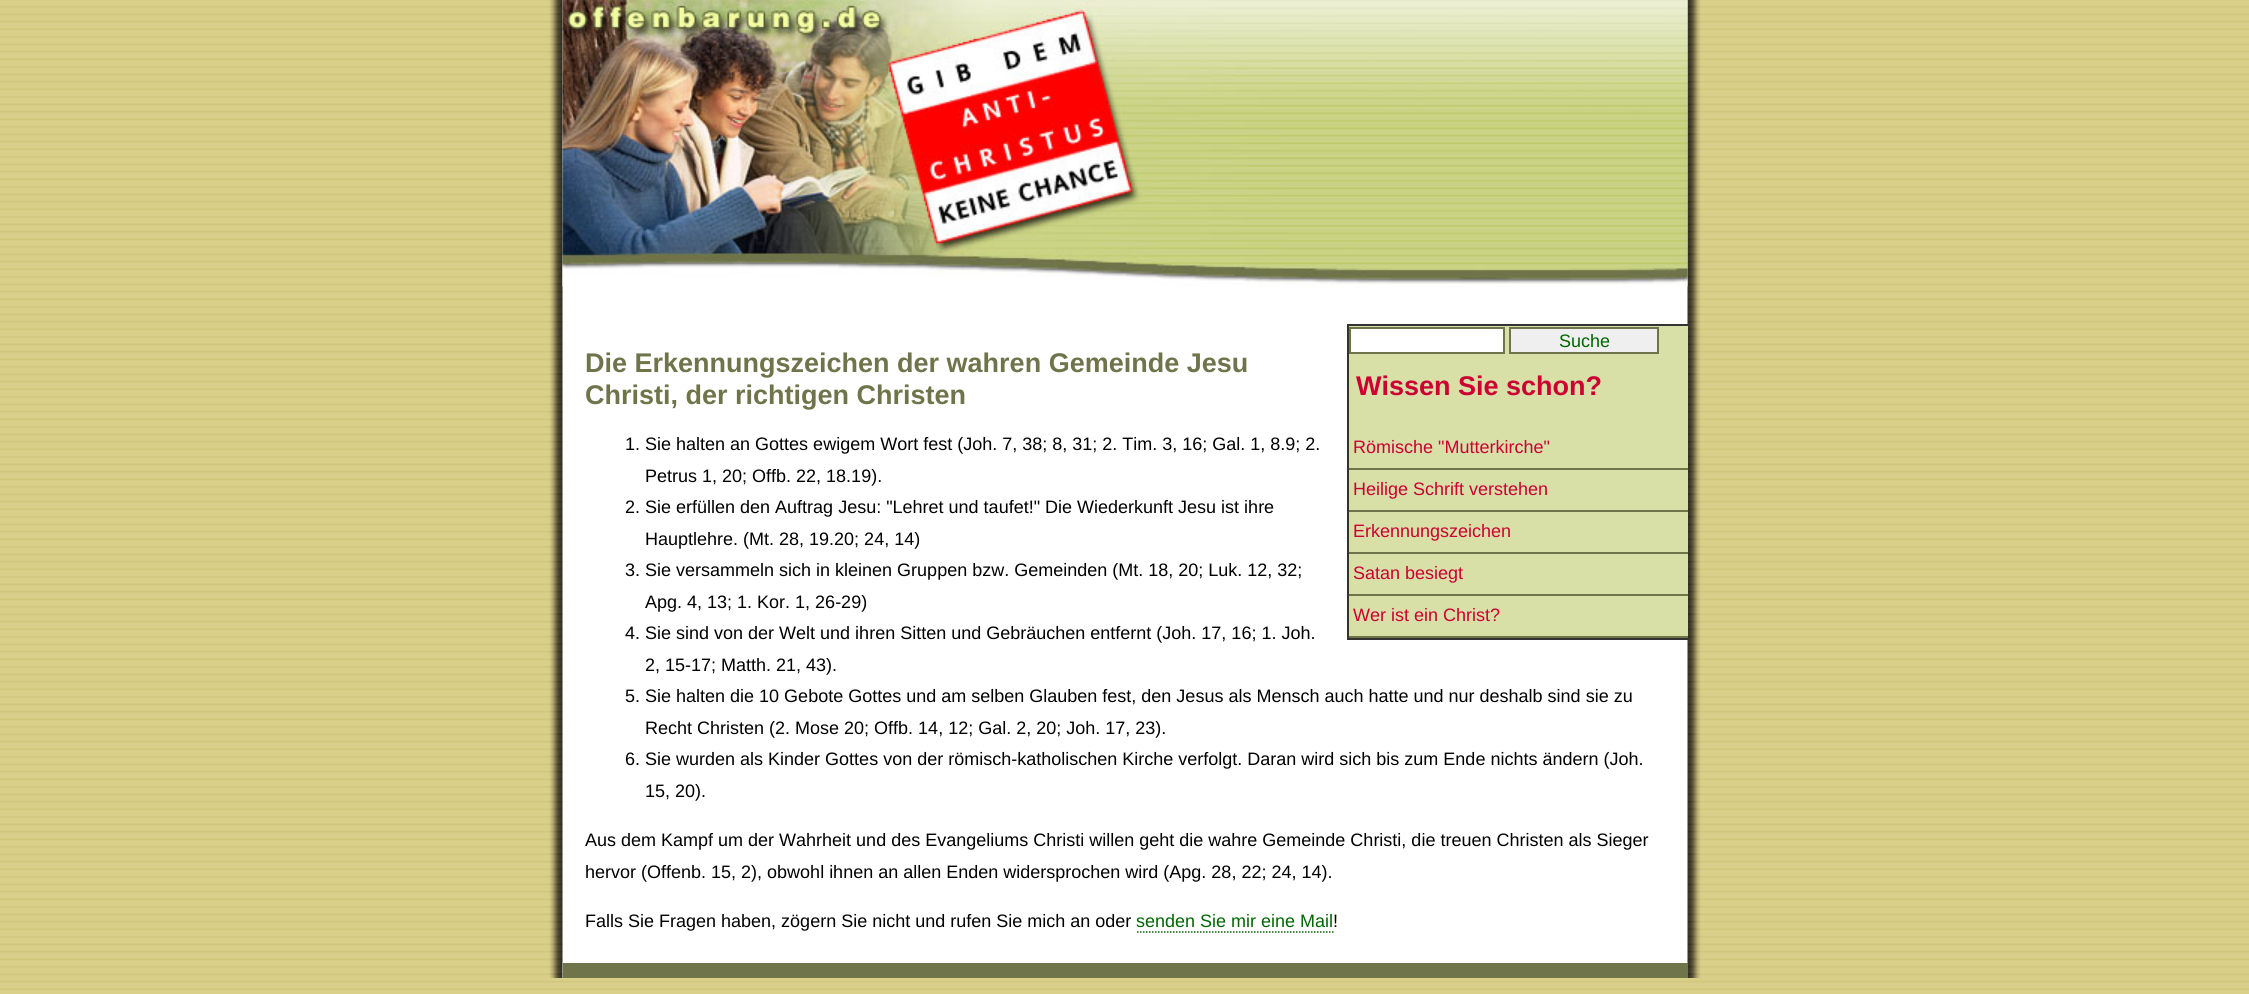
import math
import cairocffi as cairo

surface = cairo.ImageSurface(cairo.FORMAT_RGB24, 2249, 994)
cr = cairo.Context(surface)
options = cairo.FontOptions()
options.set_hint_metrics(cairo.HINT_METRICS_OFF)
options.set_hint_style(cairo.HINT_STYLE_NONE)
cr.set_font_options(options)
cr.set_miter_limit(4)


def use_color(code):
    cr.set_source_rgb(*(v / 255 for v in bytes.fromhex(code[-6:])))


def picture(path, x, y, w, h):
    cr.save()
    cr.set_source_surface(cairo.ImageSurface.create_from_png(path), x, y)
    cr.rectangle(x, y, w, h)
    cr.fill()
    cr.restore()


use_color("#ffffff")
cr.paint()
picture("img1.png", 0, 0, 2249, 994)
picture("img2.png", 548, 0, 1153, 978)
picture("img3.png", 562, 0, 1126, 287)
use_color("#d8dfa7")
cr.rectangle(1349, 326, 339, 310)
cr.fill()
use_color("#333333")
cr.rectangle(1347, 324, 341, 2)
cr.fill()
cr.rectangle(1347, 638, 341, 2)
cr.fill()
cr.rectangle(1347, 324, 2, 315)
cr.fill()
use_color("#ffffff")
cr.rectangle(1350, 328, 154, 25)
cr.fill_preserve()
use_color("#6f744a")
cr.stroke()
use_color("#efefef")
cr.rectangle(1510, 328, 148, 25)
cr.fill_preserve()
use_color("#6f744a")
cr.stroke()
cr.select_font_face("Liberation Sans")
cr.set_font_size(18)
use_color("#006600")
cr.move_to(1559, 347)
cr.show_text("Suche")
cr.select_font_face("Liberation Sans", cairo.FONT_SLANT_NORMAL, cairo.FONT_WEIGHT_BOLD)
cr.set_font_size(27)
use_color("#cc0033")
cr.move_to(1356, 395)
cr.show_text("Wissen Sie schon?")
use_color("#6f744a")
cr.rectangle(1349, 468, 339, 2)
cr.fill()
cr.select_font_face("Liberation Sans")
cr.set_font_size(18)
use_color("#cc0033")
cr.move_to(1353, 453)
cr.show_text("Römische \"Mutterkirche\"")
use_color("#6f744a")
cr.rectangle(1349, 510, 339, 2)
cr.fill()
use_color("#cc0033")
cr.move_to(1353, 495)
cr.show_text("Heilige Schrift verstehen")
use_color("#6f744a")
cr.rectangle(1349, 552, 339, 2)
cr.fill()
use_color("#cc0033")
cr.move_to(1353, 537)
cr.show_text("Erkennungszeichen")
use_color("#6f744a")
cr.rectangle(1349, 594, 339, 2)
cr.fill()
use_color("#cc0033")
cr.move_to(1353, 579)
cr.show_text("Satan besiegt")
use_color("#6f744a")
cr.rectangle(1349, 636, 339, 2)
cr.fill()
use_color("#cc0033")
cr.move_to(1353, 621)
cr.show_text("Wer ist ein Christ?")
cr.select_font_face("Liberation Sans", cairo.FONT_SLANT_NORMAL, cairo.FONT_WEIGHT_BOLD)
cr.set_font_size(27)
use_color("#6f744a")
cr.move_to(585, 372)
cr.show_text("Die Erkennungszeichen der wahren Gemeinde Jesu")
cr.move_to(585, 404)
cr.show_text("Christi, der richtigen Christen")
cr.select_font_face("Liberation Sans")
cr.set_font_size(18)
use_color("#000000")
cr.move_to(625, 450)
cr.show_text("1. Sie halten an Gottes ewigem Wort fest (Joh. 7, 38; 8, 31; 2. Tim. 3, 16; Gal. 1, 8.9; 2.")
cr.move_to(645, 482)
cr.show_text("Petrus 1, 20; Offb. 22, 18.19).")
cr.move_to(625, 513)
cr.show_text("2. Sie erfüllen den Auftrag Jesu: \"Lehret und taufet!\" Die Wiederkunft Jesu ist ihre")
cr.move_to(645, 545)
cr.show_text("Hauptlehre. (Mt. 28, 19.20; 24, 14)")
cr.move_to(625, 576)
cr.show_text("3. Sie versammeln sich in kleinen Gruppen bzw. Gemeinden (Mt. 18, 20; Luk. 12, 32;")
cr.move_to(645, 608)
cr.show_text("Apg. 4, 13; 1. Kor. 1, 26-29)")
cr.move_to(625, 639)
cr.show_text("4. Sie sind von der Welt und ihren Sitten und Gebräuchen entfernt (Joh. 17, 16; 1. Joh.")
cr.move_to(645, 671)
cr.show_text("2, 15-17; Matth. 21, 43).")
cr.move_to(625, 702)
cr.show_text("5. Sie halten die 10 Gebote Gottes und am selben Glauben fest, den Jesus als Mensch auch hatte und nur deshalb sind sie zu")
cr.move_to(645, 734)
cr.show_text("Recht Christen (2. Mose 20; Offb. 14, 12; Gal. 2, 20; Joh. 17, 23).")
cr.move_to(625, 765)
cr.show_text("6. Sie wurden als Kinder Gottes von der römisch-katholischen Kirche verfolgt. Daran wird sich bis zum Ende nichts ändern (Joh.")
cr.move_to(645, 797)
cr.show_text("15, 20).")
cr.move_to(585, 846)
cr.show_text("Aus dem Kampf um der Wahrheit und des Evangeliums Christi willen geht die wahre Gemeinde Christi, die treuen Christen als Sieger")
cr.move_to(585, 878)
cr.show_text("hervor (Offenb. 15, 2), obwohl ihnen an allen Enden widersprochen wird (Apg. 28, 22; 24, 14).")
cr.move_to(585, 927)
cr.show_text("Falls Sie Fragen haben, zögern Sie nicht und rufen Sie mich an oder")
use_color("#006600")
cr.move_to(1136, 927)
cr.show_text("senden Sie mir eine Mail")
cr.new_path()
cr.move_to(1137, 932)
cr.line_to(1333.5, 932)
cr.set_line_width(1.5)
cr.set_dash([1.5, 1.5])
cr.stroke()
use_color("#000000")
cr.move_to(1333, 927)
cr.show_text("!")
use_color("#6f744a")
cr.rectangle(563, 963, 1125, 15)
cr.fill()
surface.write_to_png("result.png")
